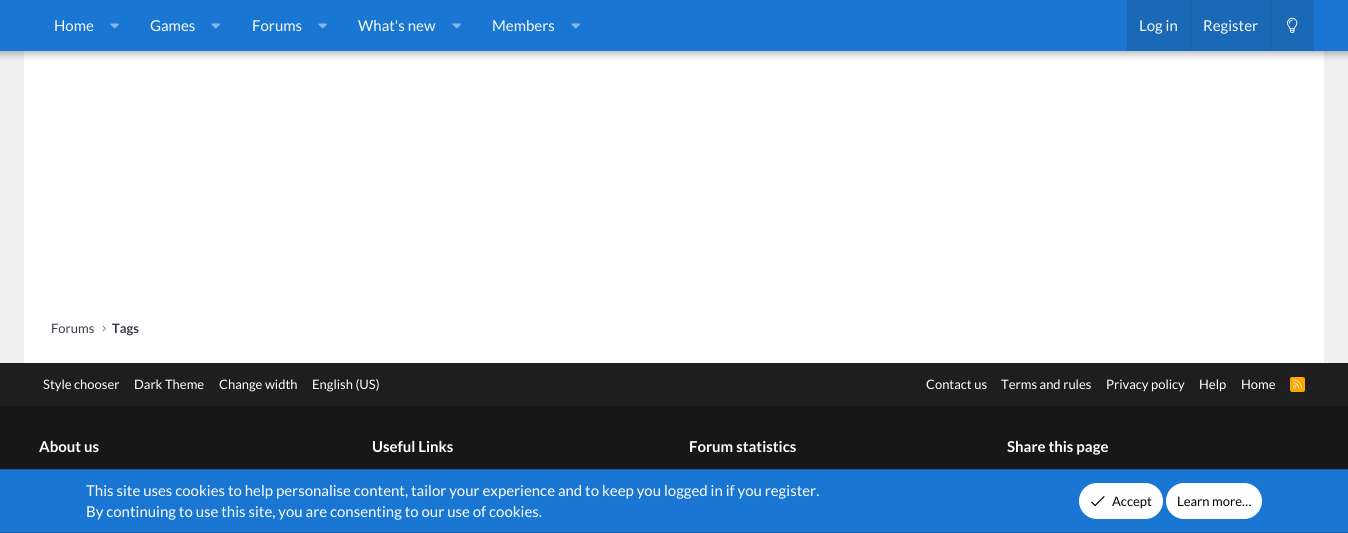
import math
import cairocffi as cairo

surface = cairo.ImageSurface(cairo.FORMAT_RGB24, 1348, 533)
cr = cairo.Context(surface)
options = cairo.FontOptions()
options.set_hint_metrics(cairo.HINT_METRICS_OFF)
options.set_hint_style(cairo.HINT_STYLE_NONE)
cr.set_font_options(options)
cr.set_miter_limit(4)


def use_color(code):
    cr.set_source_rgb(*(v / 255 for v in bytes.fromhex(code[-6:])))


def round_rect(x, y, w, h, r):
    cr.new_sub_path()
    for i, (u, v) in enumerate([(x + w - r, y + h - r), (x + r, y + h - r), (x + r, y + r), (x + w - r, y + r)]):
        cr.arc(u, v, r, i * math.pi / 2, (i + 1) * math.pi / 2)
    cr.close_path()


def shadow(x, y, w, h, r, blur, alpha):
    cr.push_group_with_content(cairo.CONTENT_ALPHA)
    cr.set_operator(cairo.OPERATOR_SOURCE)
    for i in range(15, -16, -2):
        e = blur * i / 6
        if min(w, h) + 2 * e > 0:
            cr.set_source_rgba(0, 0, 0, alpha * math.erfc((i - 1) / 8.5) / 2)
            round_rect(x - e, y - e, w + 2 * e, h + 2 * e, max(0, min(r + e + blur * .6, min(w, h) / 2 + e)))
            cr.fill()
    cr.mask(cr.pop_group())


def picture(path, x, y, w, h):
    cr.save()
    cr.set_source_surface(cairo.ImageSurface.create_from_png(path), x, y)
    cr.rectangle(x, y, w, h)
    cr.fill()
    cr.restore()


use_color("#f0f0f0")
cr.paint()
use_color("#ffffff")
cr.rectangle(24, 51, 1300, 312)
cr.fill()
use_color("#000000")
shadow(-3, -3, 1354, 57, 0, 4, 0.3)
use_color("#1976d2")
cr.rectangle(0, 0, 1348, 51)
cr.fill()
cr.select_font_face("Lato")
cr.set_font_size(15)
use_color("#f9f9f9")
cr.move_to(54, 31)
cr.show_text("Home")
picture("img1.png", 110, 23, 9, 6)
cr.move_to(150, 31)
cr.show_text("Games")
picture("img1.png", 211, 23, 9, 6)
cr.move_to(252, 31)
cr.show_text("Forums")
picture("img1.png", 318, 23, 9, 6)
cr.move_to(358, 31)
cr.show_text("What's new")
picture("img1.png", 452, 23, 9, 6)
cr.move_to(492, 31)
cr.show_text("Members")
picture("img1.png", 571, 23, 9, 6)
use_color("#1a69b7")
cr.rectangle(1127, 0, 187, 51)
cr.fill()
use_color("#f9f9f9")
cr.move_to(1139, 31)
cr.show_text("Log in")
use_color("#1a5ea0")
cr.rectangle(1190, 0, 1, 51)
cr.fill()
use_color("#f9f9f9")
cr.move_to(1203, 31)
cr.show_text("Register")
use_color("#1a5ea0")
cr.rectangle(1270, 0, 1, 51)
cr.fill()
picture("img2.png", 1287, 17, 11, 16)
cr.set_font_size(13)
use_color("#393e49")
cr.move_to(51, 333)
cr.show_text("Forums")
picture("img3.png", 102, 325, 4, 7)
cr.select_font_face("Lato", cairo.FONT_SLANT_NORMAL, cairo.FONT_WEIGHT_BOLD)
cr.move_to(112, 333)
cr.show_text("Tags")
use_color("#1e1e1e")
cr.rectangle(0, 363, 1348, 43)
cr.fill()
cr.select_font_face("Lato")
use_color("#ffffff")
cr.move_to(43, 389)
cr.show_text("Style chooser")
cr.move_to(134, 389)
cr.show_text("Dark Theme")
cr.move_to(219, 389)
cr.show_text("Change width")
cr.move_to(312, 389)
cr.show_text("English (US)")
cr.move_to(926, 389)
cr.show_text("Contact us")
cr.move_to(1001, 389)
cr.show_text("Terms and rules")
cr.move_to(1106, 389)
cr.show_text("Privacy policy")
cr.move_to(1199, 389)
cr.show_text("Help")
cr.move_to(1241, 389)
cr.show_text("Home")
use_color("#ffa500")
round_rect(1290, 377, 15, 15, 2)
cr.fill()
picture("img4.png", 1293, 379, 10, 10)
use_color("#171717")
cr.rectangle(0, 406, 1348, 63)
cr.fill()
cr.select_font_face("Lato", cairo.FONT_SLANT_NORMAL, cairo.FONT_WEIGHT_BOLD)
cr.set_font_size(15)
use_color("#ffffff")
cr.move_to(39, 452)
cr.show_text("About us")
cr.move_to(372, 452)
cr.show_text("Useful Links")
cr.move_to(689, 452)
cr.show_text("Forum statistics")
cr.move_to(1007, 452)
cr.show_text("Share this page")
use_color("#1976d2")
cr.rectangle(0, 470, 1348, 62)
cr.fill()
use_color("#145ca4")
cr.rectangle(0, 469, 1348, 1)
cr.fill()
cr.rectangle(0, 532, 1348, 1)
cr.fill()
cr.select_font_face("Lato")
use_color("#ffffff")
cr.move_to(86, 496)
cr.show_text("This site uses cookies to help personalise content, tailor your experience and to keep you logged in if you register.")
cr.move_to(86, 517)
cr.show_text("By continuing to use this site, you are consenting to our use of cookies.")
round_rect(1079.5, 483.5, 83, 35, 17.5)
cr.fill_preserve()
cr.set_line_width(1)
cr.stroke()
picture("img5.png", 1091, 496, 14, 11)
cr.set_font_size(13)
use_color("#000000")
cr.move_to(1112, 506)
cr.show_text("Accept")
use_color("#ffffff")
round_rect(1166.5, 483.5, 95, 35, 17.5)
cr.fill_preserve()
cr.stroke()
use_color("#000000")
cr.move_to(1177, 506)
cr.show_text("Learn more…")
surface.write_to_png("result.png")
